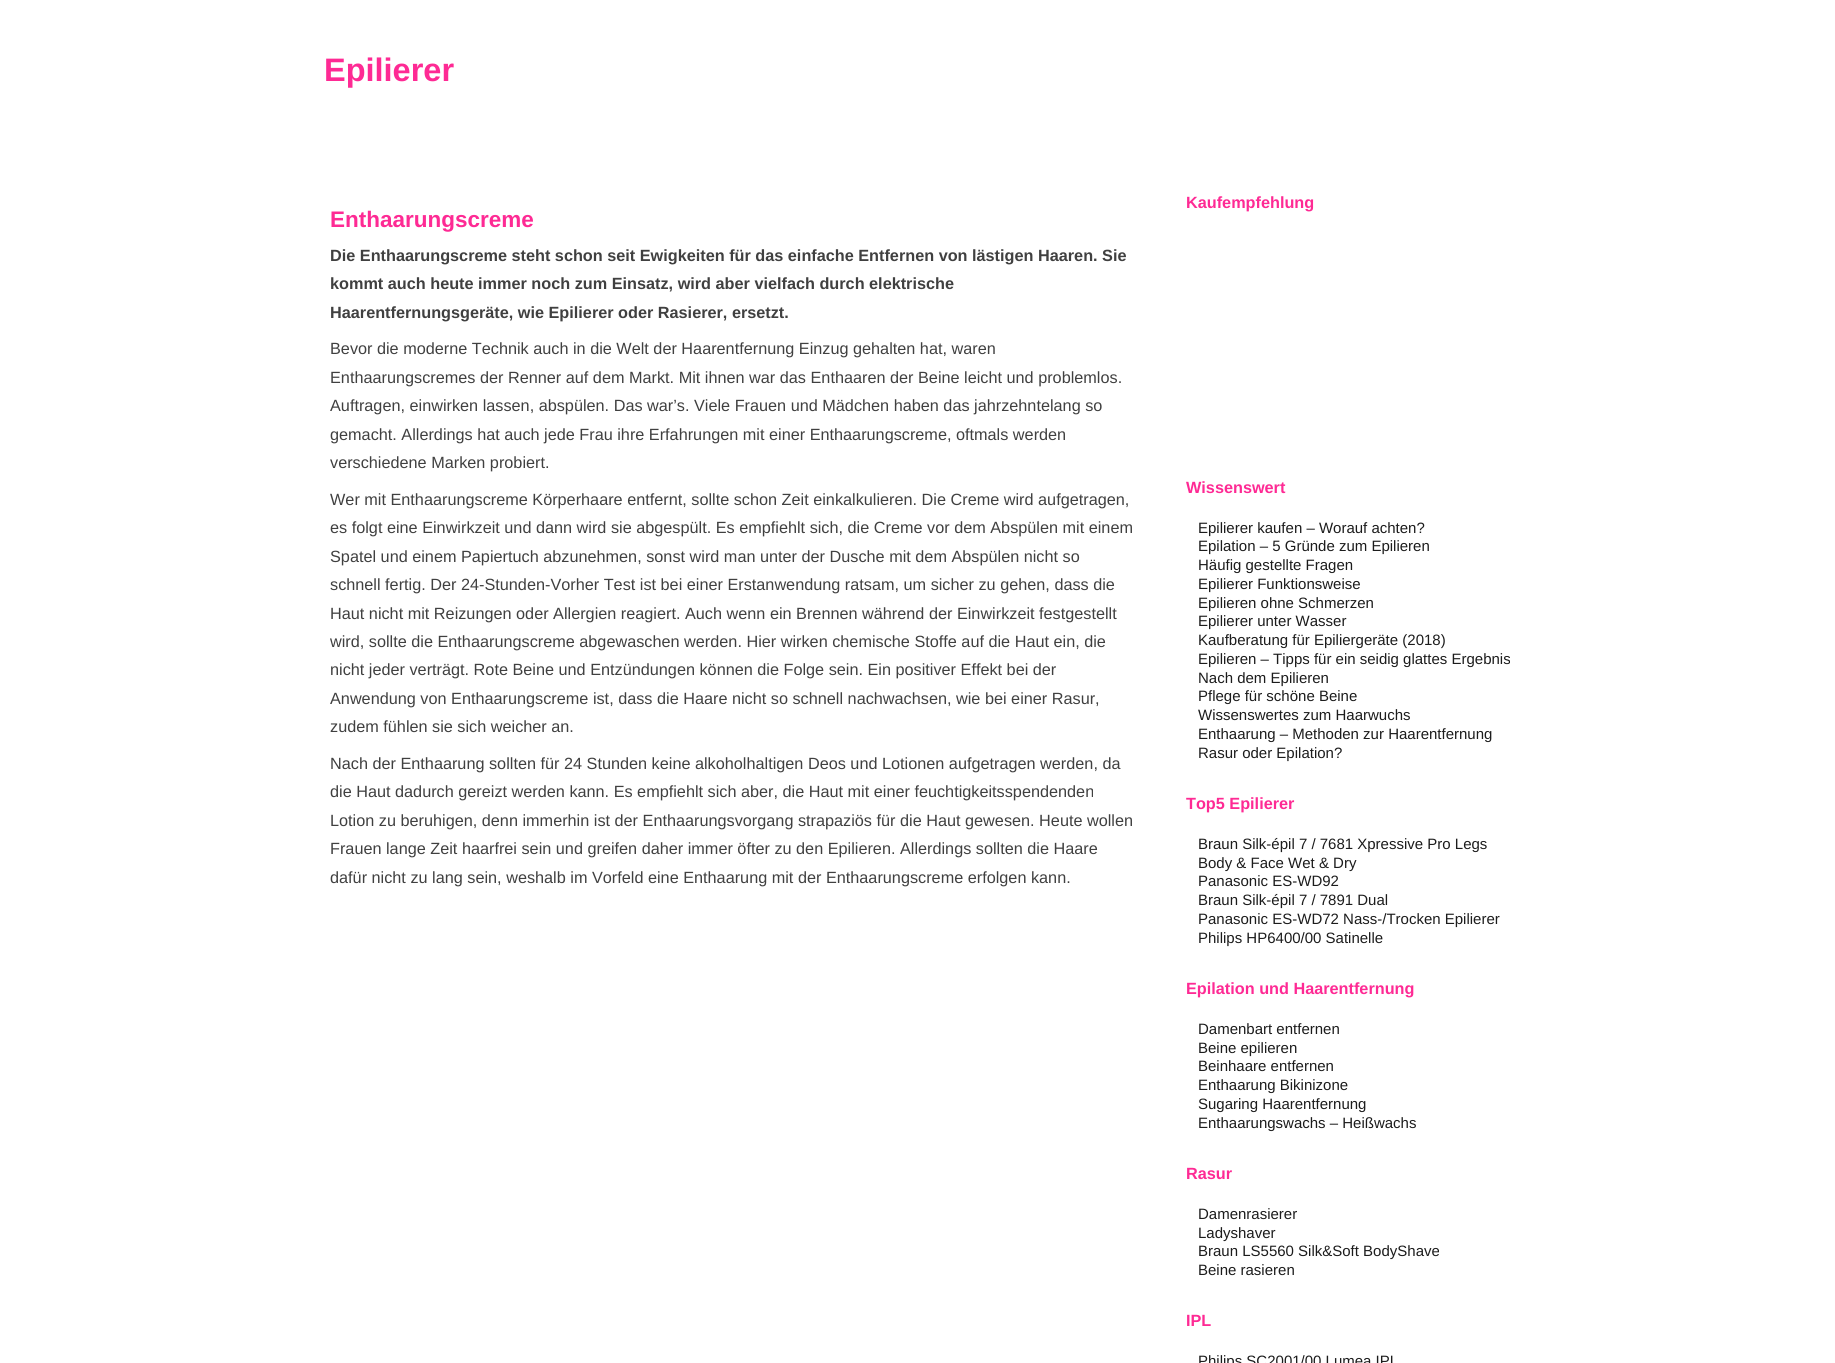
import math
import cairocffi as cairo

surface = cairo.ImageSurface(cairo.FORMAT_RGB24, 1835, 1363)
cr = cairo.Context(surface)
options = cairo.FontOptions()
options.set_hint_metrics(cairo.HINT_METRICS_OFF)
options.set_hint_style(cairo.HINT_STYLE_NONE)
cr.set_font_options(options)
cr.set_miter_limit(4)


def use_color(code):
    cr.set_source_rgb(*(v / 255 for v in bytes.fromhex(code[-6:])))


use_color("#ffffff")
cr.paint()
cr.select_font_face("Liberation Sans", cairo.FONT_SLANT_NORMAL, cairo.FONT_WEIGHT_BOLD)
cr.set_font_size(32.5)
use_color("#fe2a94")
cr.move_to(324, 81)
cr.show_text("Epilierer")
cr.set_font_size(22.5)
cr.move_to(330, 227)
cr.show_text("Enthaarungscreme")
cr.set_font_size(16.25)
use_color("#404040")
cr.move_to(330, 261)
cr.show_text("Die Enthaarungscreme steht schon seit Ewigkeiten für das einfache Entfernen von lästigen Haaren. Sie")
cr.move_to(330, 289)
cr.show_text("kommt auch heute immer noch zum Einsatz, wird aber vielfach durch elektrische")
cr.move_to(330, 318)
cr.show_text("Haarentfernungsgeräte, wie Epilierer oder Rasierer, ersetzt.")
cr.select_font_face("Liberation Sans")
cr.move_to(330, 354)
cr.show_text("Bevor die moderne Technik auch in die Welt der Haarentfernung Einzug gehalten hat, waren")
cr.move_to(330, 383)
cr.show_text("Enthaarungscremes der Renner auf dem Markt. Mit ihnen war das Enthaaren der Beine leicht und problemlos.")
cr.move_to(330, 411)
cr.show_text("Auftragen, einwirken lassen, abspülen. Das war’s. Viele Frauen und Mädchen haben das jahrzehntelang so")
cr.move_to(330, 440)
cr.show_text("gemacht. Allerdings hat auch jede Frau ihre Erfahrungen mit einer Enthaarungscreme, oftmals werden")
cr.move_to(330, 468)
cr.show_text("verschiedene Marken probiert.")
cr.move_to(330, 505)
cr.show_text("Wer mit Enthaarungscreme Körperhaare entfernt, sollte schon Zeit einkalkulieren. Die Creme wird aufgetragen,")
cr.move_to(330, 533)
cr.show_text("es folgt eine Einwirkzeit und dann wird sie abgespült. Es empfiehlt sich, die Creme vor dem Abspülen mit einem")
cr.move_to(330, 562)
cr.show_text("Spatel und einem Papiertuch abzunehmen, sonst wird man unter der Dusche mit dem Abspülen nicht so")
cr.move_to(330, 590)
cr.show_text("schnell fertig. Der 24-Stunden-Vorher Test ist bei einer Erstanwendung ratsam, um sicher zu gehen, dass die")
cr.move_to(330, 619)
cr.show_text("Haut nicht mit Reizungen oder Allergien reagiert. Auch wenn ein Brennen während der Einwirkzeit festgestellt")
cr.move_to(330, 647)
cr.show_text("wird, sollte die Enthaarungscreme abgewaschen werden. Hier wirken chemische Stoffe auf die Haut ein, die")
cr.move_to(330, 675)
cr.show_text("nicht jeder verträgt. Rote Beine und Entzündungen können die Folge sein. Ein positiver Effekt bei der")
cr.move_to(330, 704)
cr.show_text("Anwendung von Enthaarungscreme ist, dass die Haare nicht so schnell nachwachsen, wie bei einer Rasur,")
cr.move_to(330, 732)
cr.show_text("zudem fühlen sie sich weicher an.")
cr.move_to(330, 769)
cr.show_text("Nach der Enthaarung sollten für 24 Stunden keine alkoholhaltigen Deos und Lotionen aufgetragen werden, da")
cr.move_to(330, 797)
cr.show_text("die Haut dadurch gereizt werden kann. Es empfiehlt sich aber, die Haut mit einer feuchtigkeitsspendenden")
cr.move_to(330, 826)
cr.show_text("Lotion zu beruhigen, denn immerhin ist der Enthaarungsvorgang strapaziös für die Haut gewesen. Heute wollen")
cr.move_to(330, 854)
cr.show_text("Frauen lange Zeit haarfrei sein und greifen daher immer öfter zu den Epilieren. Allerdings sollten die Haare")
cr.move_to(330, 883)
cr.show_text("dafür nicht zu lang sein, weshalb im Vorfeld eine Enthaarung mit der Enthaarungscreme erfolgen kann.")
cr.select_font_face("Liberation Sans", cairo.FONT_SLANT_NORMAL, cairo.FONT_WEIGHT_BOLD)
use_color("#fe2a94")
cr.move_to(1186, 208)
cr.show_text("Kaufempfehlung")
cr.move_to(1186, 493)
cr.show_text("Wissenswert")
cr.select_font_face("Liberation Sans")
cr.set_font_size(15)
use_color("#1c1c1c")
cr.move_to(1198, 533)
cr.show_text("Epilierer kaufen – Worauf achten?")
cr.move_to(1198, 551)
cr.show_text("Epilation – 5 Gründe zum Epilieren")
cr.move_to(1198, 570)
cr.show_text("Häufig gestellte Fragen")
cr.move_to(1198, 589)
cr.show_text("Epilierer Funktionsweise")
cr.move_to(1198, 608)
cr.show_text("Epilieren ohne Schmerzen")
cr.move_to(1198, 626)
cr.show_text("Epilierer unter Wasser")
cr.move_to(1198, 645)
cr.show_text("Kaufberatung für Epiliergeräte (2018)")
cr.move_to(1198, 664)
cr.show_text("Epilieren – Tipps für ein seidig glattes Ergebnis")
cr.move_to(1198, 683)
cr.show_text("Nach dem Epilieren")
cr.move_to(1198, 701)
cr.show_text("Pflege für schöne Beine")
cr.move_to(1198, 720)
cr.show_text("Wissenswertes zum Haarwuchs")
cr.move_to(1198, 739)
cr.show_text("Enthaarung – Methoden zur Haarentfernung")
cr.move_to(1198, 758)
cr.show_text("Rasur oder Epilation?")
cr.select_font_face("Liberation Sans", cairo.FONT_SLANT_NORMAL, cairo.FONT_WEIGHT_BOLD)
cr.set_font_size(16.25)
use_color("#fe2a94")
cr.move_to(1186, 809)
cr.show_text("Top5 Epilierer")
cr.select_font_face("Liberation Sans")
cr.set_font_size(15)
use_color("#1c1c1c")
cr.move_to(1198, 849)
cr.show_text("Braun Silk-épil 7 / 7681 Xpressive Pro Legs")
cr.move_to(1198, 868)
cr.show_text("Body & Face Wet & Dry")
cr.move_to(1198, 886)
cr.show_text("Panasonic ES-WD92")
cr.move_to(1198, 905)
cr.show_text("Braun Silk-épil 7 / 7891 Dual")
cr.move_to(1198, 924)
cr.show_text("Panasonic ES-WD72 Nass-/Trocken Epilierer")
cr.move_to(1198, 943)
cr.show_text("Philips HP6400/00 Satinelle")
cr.select_font_face("Liberation Sans", cairo.FONT_SLANT_NORMAL, cairo.FONT_WEIGHT_BOLD)
cr.set_font_size(16.25)
use_color("#fe2a94")
cr.move_to(1186, 994)
cr.show_text("Epilation und Haarentfernung")
cr.select_font_face("Liberation Sans")
cr.set_font_size(15)
use_color("#1c1c1c")
cr.move_to(1198, 1034)
cr.show_text("Damenbart entfernen")
cr.move_to(1198, 1053)
cr.show_text("Beine epilieren")
cr.move_to(1198, 1071)
cr.show_text("Beinhaare entfernen")
cr.move_to(1198, 1090)
cr.show_text("Enthaarung Bikinizone")
cr.move_to(1198, 1109)
cr.show_text("Sugaring Haarentfernung")
cr.move_to(1198, 1128)
cr.show_text("Enthaarungswachs – Heißwachs")
cr.select_font_face("Liberation Sans", cairo.FONT_SLANT_NORMAL, cairo.FONT_WEIGHT_BOLD)
cr.set_font_size(16.25)
use_color("#fe2a94")
cr.move_to(1186, 1179)
cr.show_text("Rasur")
cr.select_font_face("Liberation Sans")
cr.set_font_size(15)
use_color("#1c1c1c")
cr.move_to(1198, 1219)
cr.show_text("Damenrasierer")
cr.move_to(1198, 1238)
cr.show_text("Ladyshaver")
cr.move_to(1198, 1256)
cr.show_text("Braun LS5560 Silk&Soft BodyShave")
cr.move_to(1198, 1275)
cr.show_text("Beine rasieren")
cr.select_font_face("Liberation Sans", cairo.FONT_SLANT_NORMAL, cairo.FONT_WEIGHT_BOLD)
cr.set_font_size(16.25)
use_color("#fe2a94")
cr.move_to(1186, 1326)
cr.show_text("IPL")
cr.select_font_face("Liberation Sans")
cr.set_font_size(15)
use_color("#1c1c1c")
cr.move_to(1198, 1366)
cr.show_text("Philips SC2001/00 Lumea IPL")
surface.write_to_png("result.png")
